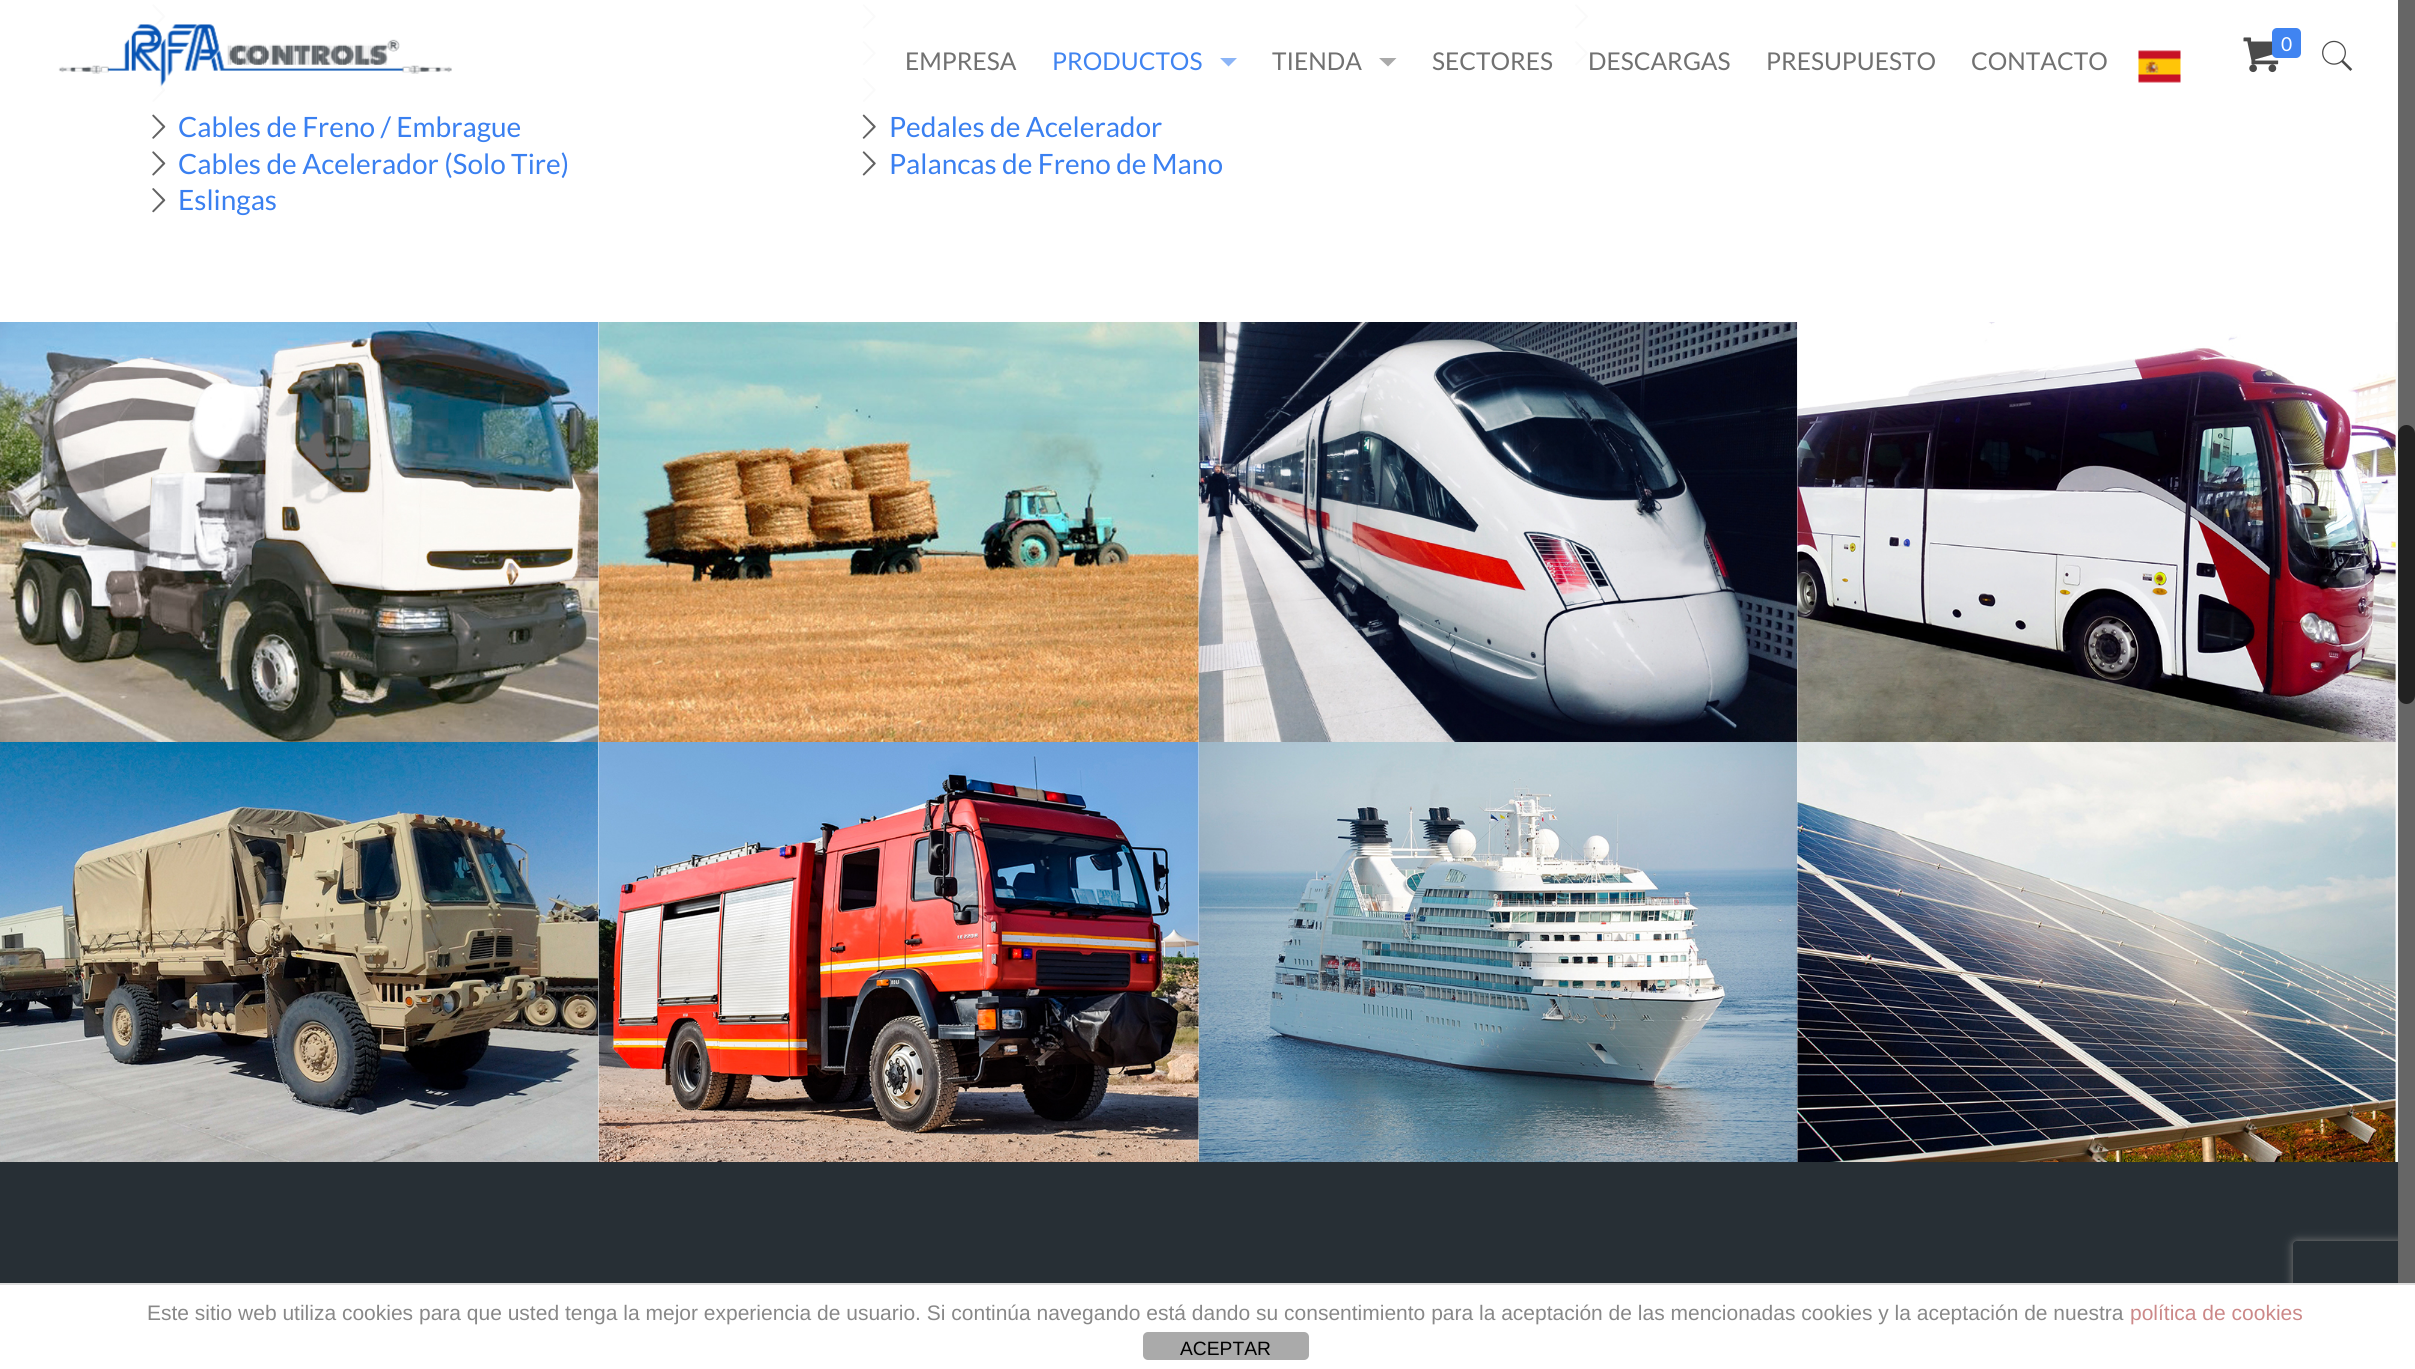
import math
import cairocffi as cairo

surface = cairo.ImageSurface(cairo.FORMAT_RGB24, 2415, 1369)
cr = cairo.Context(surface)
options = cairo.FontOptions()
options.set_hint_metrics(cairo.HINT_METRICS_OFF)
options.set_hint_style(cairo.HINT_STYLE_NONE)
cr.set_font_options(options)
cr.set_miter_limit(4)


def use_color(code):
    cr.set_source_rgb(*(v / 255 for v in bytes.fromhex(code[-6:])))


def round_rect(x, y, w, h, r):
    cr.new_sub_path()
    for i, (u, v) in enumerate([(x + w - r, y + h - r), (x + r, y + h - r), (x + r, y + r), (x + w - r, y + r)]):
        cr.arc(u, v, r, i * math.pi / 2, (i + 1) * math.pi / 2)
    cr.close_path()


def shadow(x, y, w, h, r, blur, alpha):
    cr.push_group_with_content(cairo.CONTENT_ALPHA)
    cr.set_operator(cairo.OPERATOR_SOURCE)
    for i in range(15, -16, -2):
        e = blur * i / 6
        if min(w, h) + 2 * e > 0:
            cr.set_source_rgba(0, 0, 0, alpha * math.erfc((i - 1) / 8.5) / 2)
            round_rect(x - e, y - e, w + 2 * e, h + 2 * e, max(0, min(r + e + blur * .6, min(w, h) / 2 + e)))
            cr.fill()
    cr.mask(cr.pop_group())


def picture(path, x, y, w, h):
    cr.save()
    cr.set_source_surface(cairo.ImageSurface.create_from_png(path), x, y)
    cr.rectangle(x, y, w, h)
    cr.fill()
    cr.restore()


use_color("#f8f8f8")
cr.paint()
use_color("#ffffff")
cr.rectangle(0, 0, 2398, 322)
cr.fill()
picture("img1.png", 2243, 37, 36, 36)
use_color("#4084f1")
round_rect(2272, 28, 29, 30, 5)
cr.fill()
cr.select_font_face("Lato")
cr.set_font_size(19.25)
use_color("#ffffff")
cr.move_to(2281, 51)
cr.show_text("0")
picture("img2.png", 2322, 40, 31, 31)
picture("img7.png", 152, 4, 14, 25)
picture("img8.png", 152, 41, 14, 25)
picture("img9.png", 152, 77, 14, 25)
picture("img3.png", 58, 24, 394, 63)
cr.set_font_size(24.5)
use_color("#717171")
cr.move_to(905, 70)
cr.show_text("EMPRESA")
use_color("#4084f1")
cr.move_to(1052, 70)
cr.show_text("PRODUCTOS")
cr.set_source_rgba(0.227, 0.502, 0.945, 0.58)
cr.new_path()
cr.move_to(1220, 58)
cr.line_to(1237, 58)
cr.line_to(1228.5, 66.5)
cr.close_path()
cr.fill()
use_color("#717171")
cr.move_to(1272, 70)
cr.show_text("TIENDA")
use_color("#aaaaaa")
cr.new_path()
cr.move_to(1379, 58)
cr.line_to(1396.5, 58)
cr.line_to(1388, 66.5)
cr.close_path()
cr.fill()
use_color("#717171")
cr.move_to(1432, 70)
cr.show_text("SECTORES")
cr.move_to(1588, 70)
cr.show_text("DESCARGAS")
cr.move_to(1766, 70)
cr.show_text("PRESUPUESTO")
cr.move_to(1971, 70)
cr.show_text("CONTACTO")
picture("img4.png", 2138, 50, 43, 33)
picture("img5.png", 1575, 4, 13, 25)
picture("img6.png", 1575, 41, 13, 25)
picture("img10.png", 152, 114, 14, 25)
cr.set_font_size(28)
use_color("#3a80f1")
cr.move_to(178, 137)
cr.show_text("Cables de Freno / Embrague")
picture("img11.png", 152, 151, 14, 25)
cr.move_to(178, 174)
cr.show_text("Cables de Acelerador (Solo Tire)")
picture("img12.png", 152, 188, 14, 25)
cr.move_to(178, 210)
cr.show_text("Eslingas")
picture("img13.png", 862, 4, 14, 25)
picture("img14.png", 862, 41, 14, 25)
picture("img15.png", 862, 77, 14, 25)
picture("img16.png", 862, 114, 14, 25)
cr.move_to(889, 137)
cr.show_text("Pedales de Acelerador")
picture("img17.png", 862, 151, 14, 25)
cr.move_to(889, 174)
cr.show_text("Palancas de Freno de Mano")
picture("img18.png", 0, 322, 599, 420)
picture("img19.png", 598, 322, 601, 420)
picture("img20.png", 1198, 322, 600, 420)
picture("img21.png", 1797, 322, 599, 420)
picture("img22.png", 0, 742, 599, 420)
picture("img23.png", 598, 742, 601, 420)
picture("img24.png", 1198, 742, 600, 420)
picture("img25.png", 1797, 742, 599, 420)
use_color("#272f35")
cr.rectangle(0, 1162, 2398, 121)
cr.fill()
cr.save()
cr.set_fill_rule(cairo.FILL_RULE_EVEN_ODD)
cr.new_path()
cr.move_to(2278, 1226)
cr.line_to(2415, 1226)
cr.line_to(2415, 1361)
cr.line_to(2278, 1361)
cr.close_path()
cr.move_to(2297, 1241)
cr.line_to(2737, 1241)
cr.curve_to(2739, 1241, 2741, 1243, 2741, 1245)
cr.line_to(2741, 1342)
cr.curve_to(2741, 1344, 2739, 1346, 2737, 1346)
cr.line_to(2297, 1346)
cr.curve_to(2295, 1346, 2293, 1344, 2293, 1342)
cr.line_to(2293, 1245)
cr.curve_to(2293, 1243, 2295, 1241, 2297, 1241)
cr.close_path()
cr.clip()
use_color("#808080")
shadow(2293, 1241, 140, 105, 4, 4.5, 1)
cr.restore()
use_color("#666666")
cr.rectangle(2398, 0, 17, 1283)
cr.fill()
use_color("#222222")
round_rect(2398, 425, 17, 279, 8.5)
cr.fill()
use_color("#ffffff")
cr.rectangle(0, 1285, 2415, 84)
cr.fill()
use_color("#dddddd")
cr.rectangle(0, 1283, 2415, 2)
cr.fill()
cr.select_font_face("Liberation Sans")
cr.set_font_size(21)
use_color("#888888")
cr.move_to(147, 1320)
cr.show_text("Este sitio web utiliza cookies para que usted tenga la mejor experiencia de usuario. Si continúa navegando está dando su consentimiento para la aceptación de las mencionadas cookies y la aceptación de nuestra")
use_color("#cc8888")
cr.move_to(2130, 1320)
cr.show_text("política de cookies")
use_color("#aaaaaa")
round_rect(1143, 1332, 166, 28, 5)
cr.fill()
cr.set_font_size(19.25)
use_color("#000000")
cr.move_to(1180, 1355)
cr.show_text("ACEPTAR")
surface.write_to_png("result.png")
